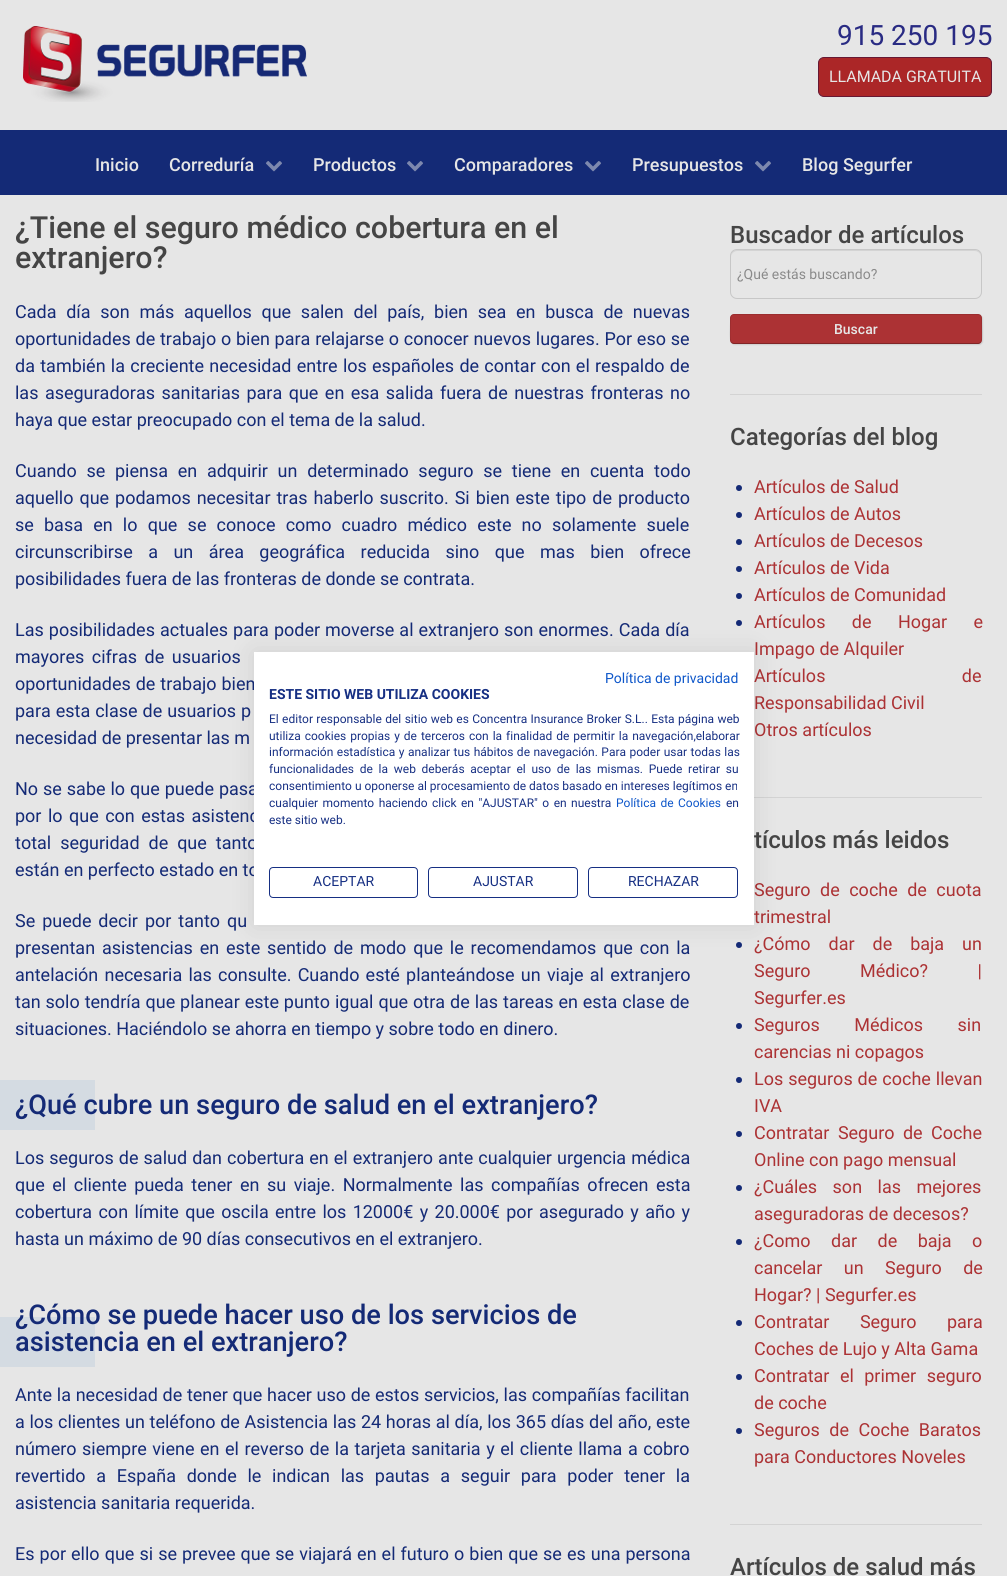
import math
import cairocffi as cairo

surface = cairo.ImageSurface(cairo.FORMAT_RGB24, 1007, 1576)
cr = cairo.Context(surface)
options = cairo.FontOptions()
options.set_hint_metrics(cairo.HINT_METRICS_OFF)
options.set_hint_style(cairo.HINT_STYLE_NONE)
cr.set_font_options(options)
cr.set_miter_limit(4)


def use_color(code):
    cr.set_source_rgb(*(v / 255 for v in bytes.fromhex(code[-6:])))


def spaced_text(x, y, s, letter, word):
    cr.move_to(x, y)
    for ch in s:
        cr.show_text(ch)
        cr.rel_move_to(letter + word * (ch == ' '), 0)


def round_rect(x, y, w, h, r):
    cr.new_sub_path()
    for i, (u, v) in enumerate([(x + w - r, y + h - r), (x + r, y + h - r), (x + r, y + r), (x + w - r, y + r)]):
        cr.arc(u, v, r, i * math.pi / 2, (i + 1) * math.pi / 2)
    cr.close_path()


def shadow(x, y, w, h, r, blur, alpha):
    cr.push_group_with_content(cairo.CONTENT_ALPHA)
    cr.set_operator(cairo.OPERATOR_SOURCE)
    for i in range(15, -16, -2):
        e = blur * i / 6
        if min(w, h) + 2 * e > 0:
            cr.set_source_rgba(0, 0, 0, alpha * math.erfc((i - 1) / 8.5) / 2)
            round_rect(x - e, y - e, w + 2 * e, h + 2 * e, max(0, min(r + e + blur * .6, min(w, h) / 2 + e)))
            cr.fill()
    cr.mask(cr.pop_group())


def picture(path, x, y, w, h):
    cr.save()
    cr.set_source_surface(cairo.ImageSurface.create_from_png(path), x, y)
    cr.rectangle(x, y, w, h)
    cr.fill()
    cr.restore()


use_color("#e6e6e6")
cr.paint()
picture("img1.png", 23, 26, 284, 76)
cr.select_font_face("Roboto")
cr.set_font_size(28)
use_color("#292b83")
cr.move_to(837, 45)
cr.show_text("915 250 195")
use_color("#ab2627")
round_rect(818.5, 57.5, 173, 39, 5.5)
cr.fill_preserve()
use_color("#661833")
cr.set_line_width(1)
cr.stroke()
cr.set_font_size(16)
use_color("#e6e6e6")
cr.move_to(829, 82)
cr.show_text("LLAMADA GRATUITA")
use_color("#142a76")
cr.rectangle(0, 130, 1007, 65)
cr.fill()
cr.select_font_face("Roboto Medium")
cr.set_font_size(18)
use_color("#e6e6e6")
cr.move_to(95, 171)
cr.show_text("Inicio")
cr.move_to(169, 171)
cr.show_text("Correduría")
picture("img2.png", 266, 161, 16, 11)
cr.move_to(313, 171)
cr.show_text("Productos")
picture("img2.png", 407, 161, 16, 11)
cr.move_to(454, 171)
cr.show_text("Comparadores")
picture("img2.png", 585, 161, 16, 11)
cr.move_to(632, 171)
cr.show_text("Presupuestos")
picture("img2.png", 755, 161, 16, 11)
cr.move_to(802, 171)
cr.show_text("Blog Segurfer")
cr.set_font_size(30.4)
use_color("#454545")
cr.move_to(15, 238)
cr.show_text("¿Tiene el seguro médico cobertura en el")
cr.move_to(15, 268)
cr.show_text("extranjero?")
cr.select_font_face("Roboto")
cr.set_font_size(18)
use_color("#142a76")
spaced_text(15, 318, "Cada día son más aquellos que salen del país, bien sea en busca de nuevas", 0, 5.25)
spaced_text(15, 345, "oportunidades de trabajo o bien para relajarse o conocer nuevos lugares. Por eso se", 0, 0.3)
spaced_text(15, 372, "da también la creciente necesidad entre los españoles de contar con el respaldo de", 0, 0.8)
spaced_text(15, 399, "las aseguradoras sanitarias para que en esa salida fuera de nuestras fronteras no", 0, 2)
cr.move_to(15, 426)
cr.show_text("haya que estar preocupado con el tema de la salud.")
spaced_text(15, 477, "Cuando se piensa en adquirir un determinado seguro se tiene en cuenta todo", 0, 5.25)
spaced_text(15, 504, "aquello que podamos necesitar tras haberlo suscrito. Si bien este tipo de producto", 0, 1.5)
spaced_text(15, 531, "se basa en lo que se conoce como cuadro médico este no solamente suele", 0, 5.75)
spaced_text(15, 558, "circunscribirse a un área geográfica reducida sino que mas bien ofrece", 0, 11)
cr.move_to(15, 585)
cr.show_text("posibilidades fuera de las fronteras de donde se contrata.")
spaced_text(15, 636, "Las posibilidades actuales para poder moverse al extranjero son enormes. Cada día", 0, 0.6)
spaced_text(15, 663, "mayores cifras de usuarios", 0, 3.1)
spaced_text(15, 690, "oportunidades de trabajo bien", 0, 0.5)
spaced_text(15, 717, "para esta clase de usuarios p", 0, 0.5)
cr.move_to(15, 744)
cr.show_text("necesidad de presentar las m")
spaced_text(15, 795, "No se sabe lo que puede pasa", 0, 0.5)
spaced_text(15, 822, "por lo que con estas asistenc", 0, 2)
spaced_text(15, 849, "total seguridad de que tanto", 0, 4.5)
cr.move_to(15, 876)
cr.show_text("están en perfecto estado en to")
spaced_text(15, 927, "Se puede decir por tanto qu", 0, 2.5)
spaced_text(15, 954, "presentan asistencias en este sentido de modo que le recomendamos que con la", 0, 2.4)
spaced_text(15, 981, "antelación necesaria las consulte. Cuando esté planteándose un viaje al extranjero", 0, 1.75)
spaced_text(15, 1008, "tan solo tendría que planear este punto igual que otra de las tareas en esta clase de", 0, 0.5)
cr.move_to(15, 1035)
cr.show_text("situaciones. Haciéndolo se ahorra en tiempo y sobre todo en dinero.")
use_color("#d4dbe2")
cr.rectangle(0, 1080, 95, 50)
cr.fill()
cr.select_font_face("Roboto Medium")
cr.set_font_size(27.2)
use_color("#142a76")
cr.move_to(15, 1114)
cr.show_text("¿Qué cubre un seguro de salud en el extranjero?")
cr.select_font_face("Roboto")
cr.set_font_size(18)
spaced_text(15, 1164, "Los seguros de salud dan cobertura en el extranjero ante cualquier urgencia médica", 0, 0.6)
spaced_text(15, 1191, "que el cliente pueda tener en su viaje. Normalmente las compañías ofrecen esta", 0, 3.1)
spaced_text(15, 1218, "cobertura con límite que oscila entre los 12000€ y 20.000€ por asegurado y año y", 0, 1.9)
cr.move_to(15, 1245)
cr.show_text("hasta un máximo de 90 días consecutivos en el extranjero.")
use_color("#d4dbe2")
cr.rectangle(0, 1317, 95, 50)
cr.fill()
cr.select_font_face("Roboto Medium")
cr.set_font_size(27.2)
use_color("#142a76")
cr.move_to(15, 1324)
cr.show_text("¿Cómo se puede hacer uso de los servicios de")
cr.move_to(15, 1351)
cr.show_text("asistencia en el extranjero?")
cr.select_font_face("Roboto")
cr.set_font_size(18)
spaced_text(15, 1401, "Ante la necesidad de tener que hacer uso de estos servicios, las compañías facilitan", 0, 0.25)
spaced_text(15, 1428, "a los clientes un teléfono de Asistencia las 24 horas al día, los 365 días del año, este", 0, 0.2)
spaced_text(15, 1455, "número siempre viene en el reverso de la tarjeta sanitaria y el cliente llama a cobro", 0, 1.1)
spaced_text(15, 1482, "revertido a España donde le indican las pautas a seguir para poder tener la", 0, 6.25)
cr.move_to(15, 1509)
cr.show_text("asistencia sanitaria requerida.")
spaced_text(15, 1560, "Es por ello que si se prevee que se viajará en el futuro o bien que se es una persona", 0, 0.6)
use_color("#d3d3d3")
cr.rectangle(730, 394, 252, 1)
cr.fill()
cr.select_font_face("Roboto Medium")
cr.set_font_size(24)
use_color("#454545")
cr.move_to(730, 243)
cr.show_text("Buscador de artículos")
use_color("#d4d4d4")
cr.new_path()
cr.move_to(737, 251)
cr.line_to(975, 251)
cr.curve_to(978, 251, 981, 254, 981, 257)
cr.curve_to(981, 253, 979, 250, 975, 250)
cr.line_to(736, 250)
cr.curve_to(732, 251, 731, 254, 731, 257)
cr.curve_to(731, 254, 734, 251, 737, 251)
cr.close_path()
cr.fill()
round_rect(730.5, 249.5, 251, 49, 6.5)
use_color("#c7c7c7")
cr.stroke()
cr.select_font_face("Roboto")
cr.set_font_size(14)
use_color("#8a8a8a")
cr.move_to(737, 279)
cr.show_text("¿Qué estás buscando?")
use_color("#000000")
shadow(731, 315, 252, 30, 4, 0.5, 0.1)
use_color("#ac3234")
round_rect(730, 314, 252, 30, 4)
cr.fill()
cr.new_path()
cr.move_to(980.5, 342.5)
cr.curve_to(980, 343, 979, 343.5, 978, 343.5)
cr.line_to(734, 343.5)
cr.curve_to(733, 343.5, 732, 343, 731.5, 342.5)
cr.set_source_rgba(0, 0, 0, 0.25)
cr.stroke()
cr.new_path()
cr.move_to(731.5, 342.5)
cr.curve_to(729, 340, 730.5, 325.5, 730.5, 321.5)
cr.curve_to(730.5, 319, 730, 314.5, 734, 314.5)
cr.line_to(978, 314.5)
cr.curve_to(982, 314.5, 981.5, 319, 981.5, 321.5)
cr.curve_to(981.5, 325.5, 983, 340, 980.5, 342.5)
cr.set_source_rgba(0, 0, 0, 0.1)
cr.stroke()
cr.select_font_face("Roboto Medium")
use_color("#e6e6e6")
cr.move_to(834, 334)
cr.show_text("Buscar")
use_color("#d3d3d3")
cr.rectangle(754, 797, 228, 1)
cr.fill()
cr.set_font_size(24)
use_color("#454545")
cr.move_to(730, 445)
cr.show_text("Categorías del blog")
use_color("#142a76")
cr.new_path()
cr.arc(739, 488, 3, 0, 2 * math.pi)
cr.fill()
cr.select_font_face("Roboto")
cr.set_font_size(18)
use_color("#ac3234")
cr.move_to(754, 493)
cr.show_text("Artículos de Salud")
use_color("#142a76")
cr.new_path()
cr.arc(739, 515, 3, 0, 2 * math.pi)
cr.fill()
use_color("#ac3234")
cr.move_to(754, 520)
cr.show_text("Artículos de Autos")
use_color("#142a76")
cr.new_path()
cr.arc(739, 542, 3, 0, 2 * math.pi)
cr.fill()
use_color("#ac3234")
cr.move_to(754, 547)
cr.show_text("Artículos de Decesos")
use_color("#142a76")
cr.new_path()
cr.arc(739, 569, 3, 0, 2 * math.pi)
cr.fill()
use_color("#ac3234")
cr.move_to(754, 574)
cr.show_text("Artículos de Vida")
use_color("#142a76")
cr.new_path()
cr.arc(739, 596, 3, 0, 2 * math.pi)
cr.fill()
use_color("#ac3234")
cr.move_to(754, 601)
cr.show_text("Artículos de Comunidad")
use_color("#142a76")
cr.new_path()
cr.arc(739, 623, 3, 0, 2 * math.pi)
cr.fill()
use_color("#ac3234")
spaced_text(754, 628, "Artículos de Hogar e", 0, 22)
cr.move_to(754, 655)
cr.show_text("Impago de Alquiler")
spaced_text(754, 682, "Artículos de", 0, 132)
cr.move_to(754, 709)
cr.show_text("Responsabilidad Civil")
cr.move_to(754, 736)
cr.show_text("Otros artículos")
use_color("#d3d3d3")
cr.rectangle(730, 1524, 252, 1)
cr.fill()
cr.select_font_face("Roboto Medium")
cr.set_font_size(24)
use_color("#454545")
cr.move_to(754, 848)
cr.show_text("tículos más leidos")
cr.select_font_face("Roboto")
cr.set_font_size(18)
use_color("#ac3234")
spaced_text(754, 896, "Seguro de coche de cuota", 0, 5)
cr.move_to(754, 923)
cr.show_text("trimestral")
use_color("#142a76")
cr.new_path()
cr.arc(739, 945, 3, 0, 2 * math.pi)
cr.fill()
use_color("#ac3234")
spaced_text(754, 950, "¿Cómo dar de baja un", 0, 13.5)
spaced_text(754, 977, "Seguro Médico? |", 0, 45)
cr.move_to(754, 1004)
cr.show_text("Segurfer.es")
use_color("#142a76")
cr.new_path()
cr.arc(739, 1026, 3, 0, 2 * math.pi)
cr.fill()
use_color("#ac3234")
spaced_text(754, 1031, "Seguros Médicos sin", 0, 30)
cr.move_to(754, 1058)
cr.show_text("carencias ni copagos")
use_color("#142a76")
cr.new_path()
cr.arc(739, 1080, 3, 0, 2 * math.pi)
cr.fill()
use_color("#ac3234")
spaced_text(754, 1085, "Los seguros de coche llevan", 0, 0.5)
cr.move_to(754, 1112)
cr.show_text("IVA")
use_color("#142a76")
cr.new_path()
cr.arc(739, 1134, 3, 0, 2 * math.pi)
cr.fill()
use_color("#ac3234")
spaced_text(754, 1139, "Contratar Seguro de Coche", 0, 4)
cr.move_to(754, 1166)
cr.show_text("Online con pago mensual")
use_color("#142a76")
cr.new_path()
cr.arc(739, 1188, 3, 0, 2 * math.pi)
cr.fill()
use_color("#ac3234")
spaced_text(754, 1193, "¿Cuáles son las mejores", 0, 11)
cr.move_to(754, 1220)
cr.show_text("aseguradoras de decesos?")
use_color("#142a76")
cr.new_path()
cr.arc(739, 1242, 3, 0, 2 * math.pi)
cr.fill()
use_color("#ac3234")
spaced_text(754, 1247, "¿Como dar de baja o", 0, 16)
spaced_text(754, 1274, "cancelar un Seguro de", 0, 17)
cr.move_to(754, 1301)
cr.show_text("Hogar? | Segurfer.es")
use_color("#142a76")
cr.new_path()
cr.arc(739, 1323, 3, 0, 2 * math.pi)
cr.fill()
use_color("#ac3234")
spaced_text(754, 1328, "Contratar Seguro para", 0, 26)
cr.move_to(754, 1355)
cr.show_text("Coches de Lujo y Alta Gama")
use_color("#142a76")
cr.new_path()
cr.arc(739, 1377, 3, 0, 2 * math.pi)
cr.fill()
use_color("#ac3234")
spaced_text(754, 1382, "Contratar el primer seguro", 0, 6)
cr.move_to(754, 1409)
cr.show_text("de coche")
use_color("#142a76")
cr.new_path()
cr.arc(739, 1431, 3, 0, 2 * math.pi)
cr.fill()
use_color("#ac3234")
spaced_text(754, 1436, "Seguros de Coche Baratos", 0, 5)
cr.move_to(754, 1463)
cr.show_text("para Conductores Noveles")
cr.select_font_face("Roboto Medium")
cr.set_font_size(24)
use_color("#454545")
cr.move_to(730, 1575)
cr.show_text("Artículos de salud más")
use_color("#000000")
shadow(254, 652, 500, 273, 0, 12, 0.1)
use_color("#ffffff")
cr.rectangle(254, 652, 500, 273)
cr.fill()
cr.select_font_face("Roboto")
cr.set_font_size(14)
use_color("#0d56c9")
cr.move_to(605, 683)
cr.show_text("Política de privacidad")
cr.select_font_face("Roboto", cairo.FONT_SLANT_NORMAL, cairo.FONT_WEIGHT_BOLD)
use_color("#162f83")
cr.move_to(269, 699)
cr.show_text("ESTE SITIO WEB UTILIZA COOKIES")
cr.select_font_face("Roboto")
cr.set_font_size(12)
spaced_text(269, 723, "El editor responsable del sitio web es Concentra Insurance Broker S.L.. Esta página web", 0, 0.4)
spaced_text(269, 740, "utiliza cookies propias y de terceros con la finalidad de permitir la navegación,elaborar", 0, 1)
spaced_text(269, 756, "información estadística y analizar tus hábitos de navegación. Para poder usar todas las", 0, 0.5)
spaced_text(269, 773, "funcionalidades de la web deberás aceptar el uso de las mismas. Puede retirar su", 0, 2.75)
cr.move_to(269, 790)
cr.show_text("consentimiento u oponerse al procesamiento de datos basado en intereses legítimos en")
spaced_text(269, 807, "cualquier momento haciendo click en \"AJUSTAR\" o en nuestra", 0, 1.5)
use_color("#0d56c9")
spaced_text(616, 807, "Política de Cookies", 0, 1.5)
use_color("#162f83")
cr.move_to(726, 807)
cr.show_text("en")
cr.move_to(269, 824)
cr.show_text("este sitio web.")
round_rect(269.5, 867.5, 148, 30, 3.5)
cr.stroke()
cr.set_font_size(14)
cr.move_to(313, 886)
cr.show_text("ACEPTAR")
round_rect(428.5, 867.5, 149, 30, 3.5)
cr.stroke()
cr.move_to(473, 886)
cr.show_text("AJUSTAR")
round_rect(588.5, 867.5, 149, 30, 3.5)
cr.stroke()
cr.move_to(628, 886)
cr.show_text("RECHAZAR")
surface.write_to_png("result.png")
